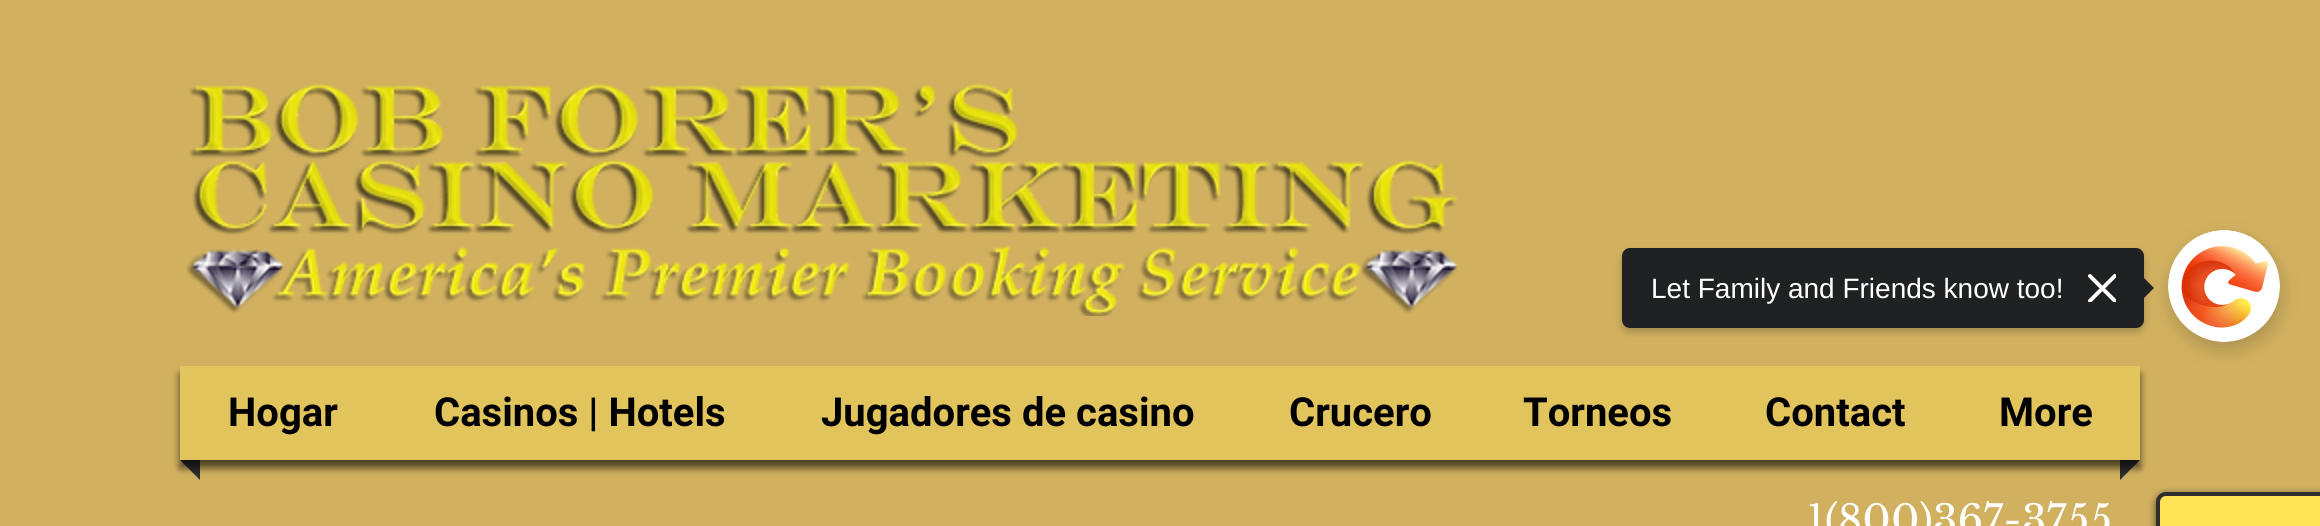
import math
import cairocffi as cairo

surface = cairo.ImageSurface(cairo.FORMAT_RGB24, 2320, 526)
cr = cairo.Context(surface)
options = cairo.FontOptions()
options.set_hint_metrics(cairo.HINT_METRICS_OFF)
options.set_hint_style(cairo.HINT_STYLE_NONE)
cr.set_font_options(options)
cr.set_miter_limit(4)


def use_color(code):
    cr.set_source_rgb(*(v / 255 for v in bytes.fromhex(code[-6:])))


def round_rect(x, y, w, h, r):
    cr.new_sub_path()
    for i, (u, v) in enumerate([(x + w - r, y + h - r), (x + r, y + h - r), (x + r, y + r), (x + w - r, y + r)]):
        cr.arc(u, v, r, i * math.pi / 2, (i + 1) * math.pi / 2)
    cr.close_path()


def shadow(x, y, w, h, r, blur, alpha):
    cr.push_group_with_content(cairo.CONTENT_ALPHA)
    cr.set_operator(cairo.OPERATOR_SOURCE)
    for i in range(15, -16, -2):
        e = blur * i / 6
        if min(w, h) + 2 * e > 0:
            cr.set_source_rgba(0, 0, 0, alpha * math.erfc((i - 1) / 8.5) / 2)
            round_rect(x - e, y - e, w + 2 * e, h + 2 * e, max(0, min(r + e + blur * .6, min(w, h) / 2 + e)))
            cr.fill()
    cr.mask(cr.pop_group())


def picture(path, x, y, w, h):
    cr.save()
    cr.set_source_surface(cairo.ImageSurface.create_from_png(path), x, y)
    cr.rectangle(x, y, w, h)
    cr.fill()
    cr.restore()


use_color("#d1b160")
cr.paint()
use_color("#000000")
shadow(2170, 238, 112, 112, 56, 9, 0.17)
shadow(1622, 252, 522, 80, 8, 4, 0.22)
use_color("#202123")
round_rect(1622, 248, 522, 80, 8)
cr.fill()
cr.select_font_face("Liberation Sans")
cr.set_font_size(28)
use_color("#ffffff")
cr.move_to(1651, 298)
cr.show_text("Let Family and Friends know too!")
picture("img1.png", 2088, 274, 28, 28)
use_color("#202123")
cr.new_path()
cr.move_to(2140, 302)
cr.line_to(2140, 274)
cr.line_to(2154, 288)
cr.close_path()
cr.fill()
picture("img2.png", 2168, 230, 112, 112)
picture("img3.png", 186, 83, 1272, 233)
use_color("#2f2e2e")
cr.new_path()
cr.move_to(180, 460)
cr.line_to(200, 460)
cr.line_to(200, 480)
cr.close_path()
cr.fill()
cr.new_path()
cr.move_to(2120, 460)
cr.line_to(2140, 460)
cr.line_to(2120, 480)
cr.close_path()
cr.fill()
use_color("#000000")
shadow(180, 374, 1960, 94, 0, 4, 0.63)
use_color("#e2c45d")
cr.rectangle(180, 366, 1960, 94)
cr.fill()
cr.select_font_face("Roboto", cairo.FONT_SLANT_NORMAL, cairo.FONT_WEIGHT_BOLD)
cr.set_font_size(40)
use_color("#000000")
cr.move_to(228, 426)
cr.show_text("Hogar")
cr.move_to(434, 426)
cr.show_text("Casinos | Hotels")
cr.move_to(821, 426)
cr.show_text("Jugadores de casino")
cr.move_to(1289, 426)
cr.show_text("Crucero")
cr.move_to(1523, 426)
cr.show_text("Torneos")
cr.move_to(1765, 426)
cr.show_text("Contact")
cr.move_to(1999, 426)
cr.show_text("More")
cr.select_font_face("Libre Baskerville")
use_color("#ffffff")
cr.move_to(1807, 534)
cr.show_text("1(800)367-3755")
use_color("#000000")
shadow(2156, 494, 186, 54, 10, 4, 0.6)
use_color("#ffe357")
round_rect(2158, 494, 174, 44, 8)
cr.fill_preserve()
use_color("#2f2e2e")
cr.set_line_width(4)
cr.stroke()
surface.write_to_png("result.png")
